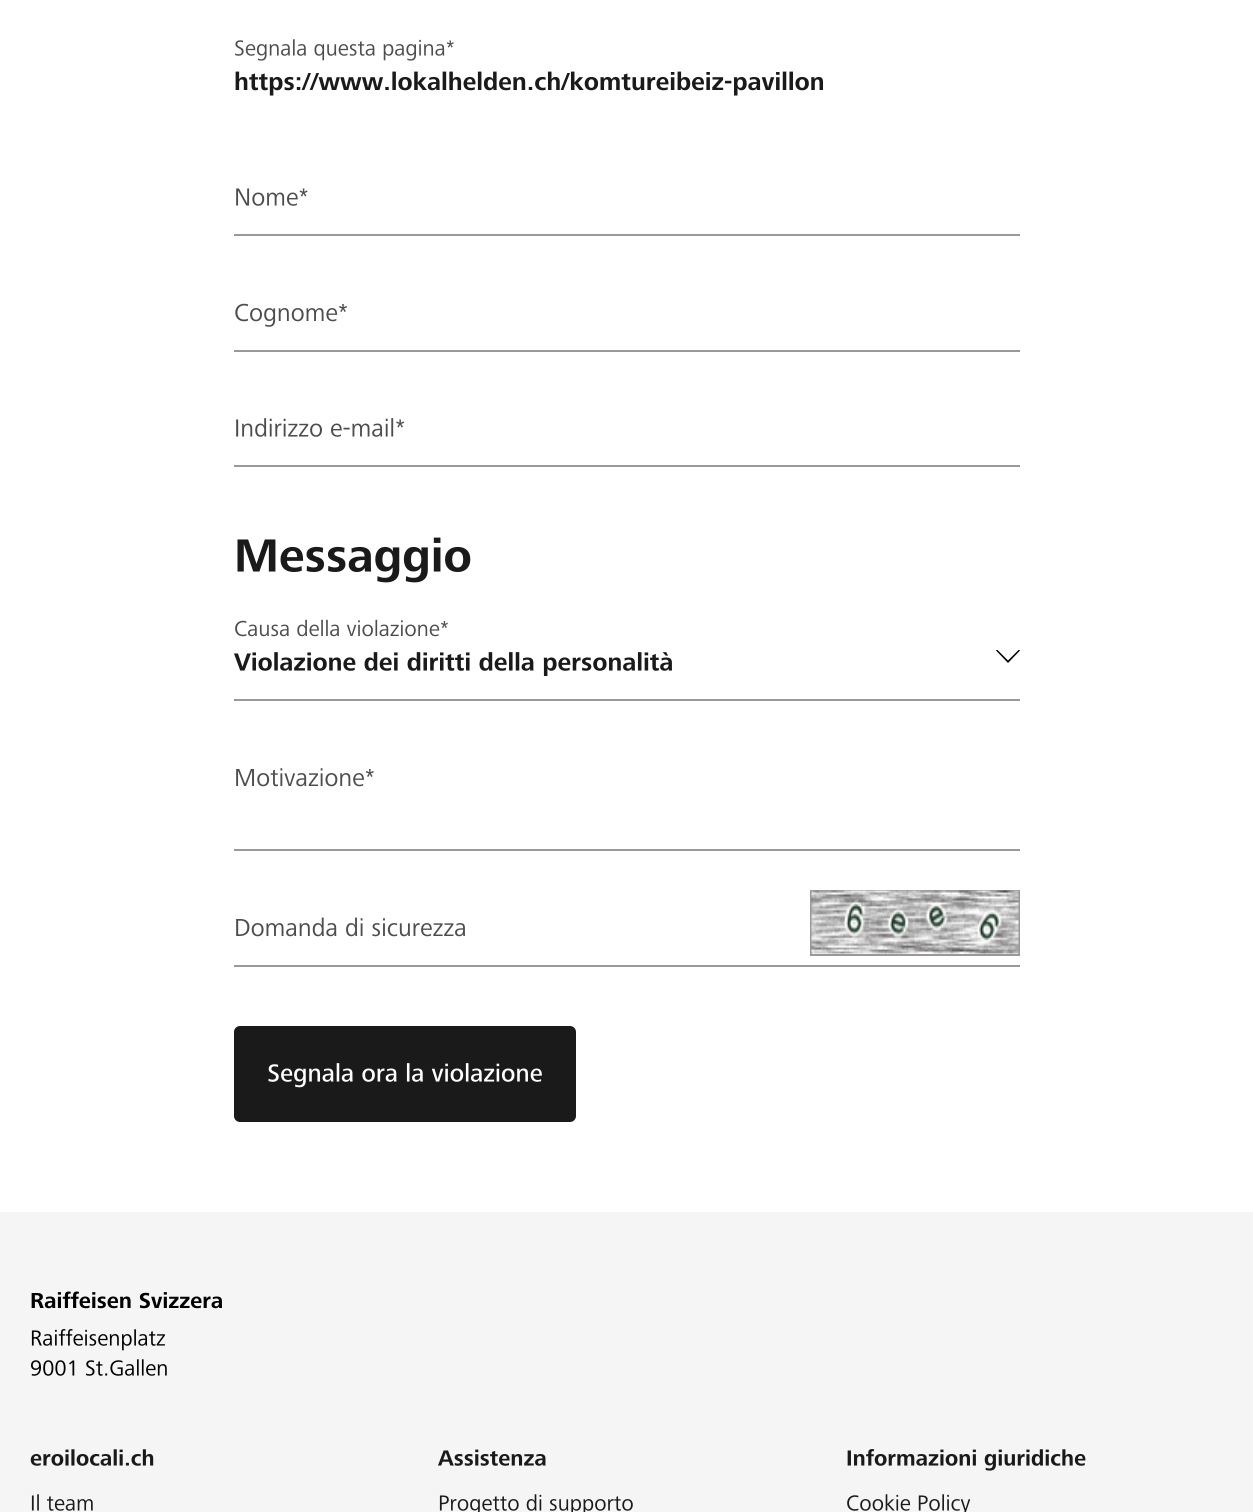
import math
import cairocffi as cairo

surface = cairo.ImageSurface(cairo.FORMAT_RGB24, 1253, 1512)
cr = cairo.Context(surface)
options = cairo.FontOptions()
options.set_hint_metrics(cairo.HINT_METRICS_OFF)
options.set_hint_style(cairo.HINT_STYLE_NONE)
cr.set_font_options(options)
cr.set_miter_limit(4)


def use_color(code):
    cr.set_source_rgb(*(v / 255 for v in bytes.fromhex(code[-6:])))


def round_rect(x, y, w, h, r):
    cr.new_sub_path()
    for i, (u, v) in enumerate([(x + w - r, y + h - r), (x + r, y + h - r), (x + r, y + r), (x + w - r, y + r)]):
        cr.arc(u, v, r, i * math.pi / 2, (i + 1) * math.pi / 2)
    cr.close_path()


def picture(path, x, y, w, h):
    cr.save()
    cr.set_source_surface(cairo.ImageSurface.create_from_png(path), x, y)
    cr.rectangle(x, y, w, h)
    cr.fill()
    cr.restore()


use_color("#ffffff")
cr.paint()
picture("img1.png", 235, 39, 219, 22)
picture("img2.png", 235, 71, 589, 25)
picture("img3.png", 236, 188, 72, 18)
use_color("#999999")
cr.rectangle(234, 234, 786, 2)
cr.fill()
picture("img4.png", 235, 303, 112, 24)
cr.rectangle(234, 350, 786, 2)
cr.fill()
picture("img5.png", 236, 418, 168, 19)
cr.rectangle(234, 465, 786, 2)
cr.fill()
picture("img6.png", 237, 537, 234, 46)
picture("img7.png", 235, 619, 213, 18)
cr.rectangle(234, 699, 786, 2)
cr.fill()
picture("img8.png", 234, 652, 438, 24)
cr.save()
cr.rectangle(996, 650, 24, 13)
cr.clip()
use_color("#000000")
cr.new_path()
cr.move_to(1008, 663)
cr.line_to(996, 650.5)
cr.line_to(997, 649.5)
cr.line_to(1008, 660.5)
cr.line_to(1019, 649.5)
cr.line_to(1020, 650.5)
cr.close_path()
cr.fill()
cr.restore()
picture("img9.png", 236, 768, 138, 19)
cr.rectangle(234, 849, 786, 2)
cr.fill()
picture("img10.png", 236, 917, 229, 20)
cr.rectangle(811, 891, 208, 64)
cr.stroke()
picture("img11.png", 811, 890, 208, 64)
cr.rectangle(234, 965, 786, 2)
cr.fill()
use_color("#1a1a1a")
round_rect(235.5, 1027.5, 339, 93, 4.5)
cr.fill_preserve()
cr.set_line_width(3)
cr.stroke()
picture("img12.png", 268, 1063, 274, 25)
use_color("#f5f5f5")
cr.rectangle(0, 1212, 1253, 300)
cr.fill()
picture("img13.png", 31, 1291, 191, 18)
picture("img14.png", 31, 1329, 134, 22)
picture("img15.png", 31, 1359, 136, 17)
picture("img16.png", 30, 1449, 124, 17)
picture("img17.png", 31, 1494, 62, 17)
picture("img18.png", 438, 1449, 108, 17)
picture("img19.png", 439, 1494, 194, 18)
picture("img20.png", 847, 1449, 239, 22)
picture("img21.png", 847, 1494, 124, 18)
surface.write_to_png("result.png")
